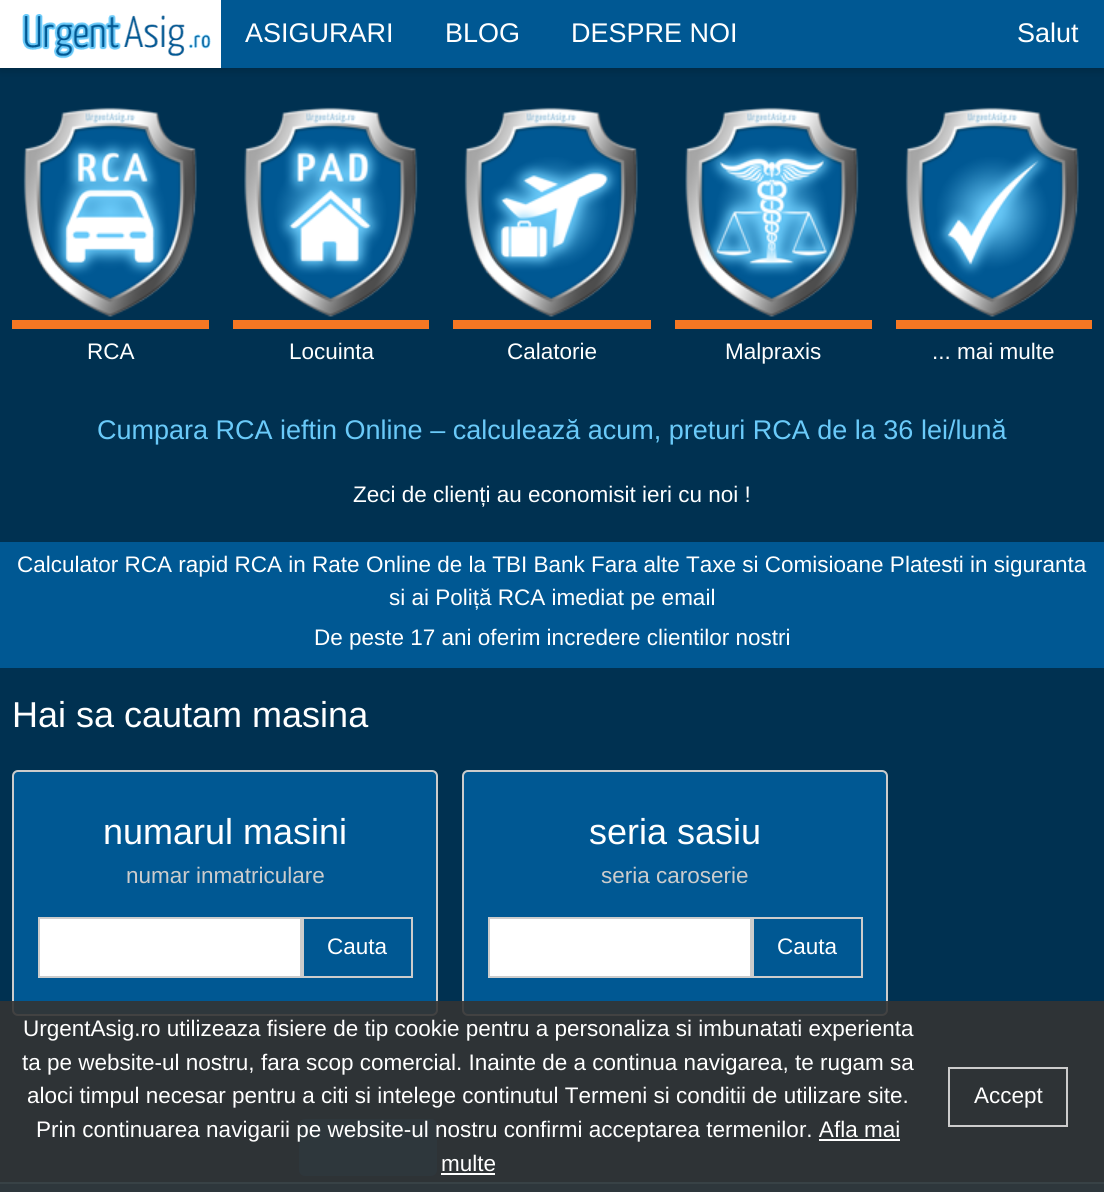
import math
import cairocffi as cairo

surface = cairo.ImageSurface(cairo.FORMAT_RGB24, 1104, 1192)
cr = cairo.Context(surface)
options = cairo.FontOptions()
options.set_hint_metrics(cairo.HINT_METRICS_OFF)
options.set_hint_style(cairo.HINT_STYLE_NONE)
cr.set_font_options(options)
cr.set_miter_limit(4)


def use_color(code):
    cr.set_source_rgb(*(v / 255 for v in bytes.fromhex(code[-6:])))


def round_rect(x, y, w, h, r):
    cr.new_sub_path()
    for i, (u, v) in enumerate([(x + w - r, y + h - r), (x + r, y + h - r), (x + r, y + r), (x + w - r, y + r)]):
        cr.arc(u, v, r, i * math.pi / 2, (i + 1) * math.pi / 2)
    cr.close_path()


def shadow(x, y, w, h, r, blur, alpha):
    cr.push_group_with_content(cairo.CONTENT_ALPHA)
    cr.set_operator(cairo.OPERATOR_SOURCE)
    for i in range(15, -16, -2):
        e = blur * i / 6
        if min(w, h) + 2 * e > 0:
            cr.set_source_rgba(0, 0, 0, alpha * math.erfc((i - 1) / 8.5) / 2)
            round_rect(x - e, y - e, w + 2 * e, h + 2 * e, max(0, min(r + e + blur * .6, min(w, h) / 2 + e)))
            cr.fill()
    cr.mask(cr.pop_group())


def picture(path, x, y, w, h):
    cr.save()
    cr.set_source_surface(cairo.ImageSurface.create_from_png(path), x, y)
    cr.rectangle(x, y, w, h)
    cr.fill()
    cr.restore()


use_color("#003151")
cr.paint()
use_color("#000000")
shadow(0, 3, 1104, 68, 0, 4, 0.16)
use_color("#005893")
cr.rectangle(221, 0, 883, 68)
cr.fill()
use_color("#ffffff")
cr.rectangle(0, 0, 221, 68)
cr.fill()
picture("img1.png", 22, 14, 189, 45)
cr.select_font_face("Liberation Sans")
cr.set_font_size(27)
cr.move_to(245, 42)
cr.show_text("ASIGURARI")
cr.move_to(445, 42)
cr.show_text("BLOG")
cr.move_to(571, 42)
cr.show_text("DESPRE NOI")
cr.move_to(1017, 42)
cr.show_text("Salut")
picture("img2.png", 23, 107, 174, 210)
use_color("#f57723")
cr.rectangle(12, 320, 197, 9)
cr.fill()
cr.set_font_size(22.5)
use_color("#ffffff")
cr.move_to(87, 359)
cr.show_text("RCA")
picture("img3.png", 244, 107, 174, 210)
use_color("#f57723")
cr.rectangle(233, 320, 196, 9)
cr.fill()
use_color("#ffffff")
cr.move_to(289, 359)
cr.show_text("Locuinta")
picture("img4.png", 464, 107, 174, 210)
use_color("#f57723")
cr.rectangle(453, 320, 198, 9)
cr.fill()
use_color("#ffffff")
cr.move_to(507, 359)
cr.show_text("Calatorie")
picture("img5.png", 685, 107, 174, 210)
use_color("#f57723")
cr.rectangle(675, 320, 197, 9)
cr.fill()
use_color("#ffffff")
cr.move_to(725, 359)
cr.show_text("Malpraxis")
picture("img6.png", 905, 107, 174, 210)
use_color("#f57723")
cr.rectangle(896, 320, 196, 9)
cr.fill()
use_color("#ffffff")
cr.move_to(932, 359)
cr.show_text("... mai multe")
cr.set_font_size(27)
use_color("#6acaf9")
cr.move_to(97, 439)
cr.show_text("Cumpara RCA ieftin Online – calculează acum, preturi RCA de la 36 lei/lună")
cr.set_font_size(22.5)
use_color("#ffffff")
cr.move_to(353, 502)
cr.show_text("Zeci de clienți au economisit ieri cu noi !")
use_color("#005893")
cr.rectangle(0, 542, 1104, 126)
cr.fill()
use_color("#ffffff")
cr.move_to(17, 572)
cr.show_text("Calculator RCA rapid RCA in Rate Online de la TBI Bank Fara alte Taxe si Comisioane Platesti in siguranta")
cr.move_to(389, 605)
cr.show_text("si ai Poliță RCA imediat pe email")
cr.move_to(314, 645)
cr.show_text("De peste 17 ani oferim incredere clientilor nostri")
cr.set_font_size(36)
cr.move_to(12, 727)
cr.show_text("Hai sa cautam masina")
use_color("#005893")
round_rect(13, 771, 424, 244, 5)
cr.fill_preserve()
use_color("#cccccc")
cr.stroke()
use_color("#ffffff")
cr.move_to(103, 844)
cr.show_text("numarul masini")
cr.set_font_size(22.5)
use_color("#cccccc")
cr.move_to(126, 883)
cr.show_text("numar inmatriculare")
use_color("#ffffff")
cr.rectangle(39, 918, 262, 59)
cr.fill_preserve()
use_color("#cccccc")
cr.stroke()
cr.rectangle(303, 918, 109, 59)
cr.stroke()
use_color("#ffffff")
cr.move_to(327, 954)
cr.show_text("Cauta")
use_color("#005893")
round_rect(463, 771, 424, 244, 5)
cr.fill_preserve()
use_color("#cccccc")
cr.stroke()
cr.set_font_size(36)
use_color("#ffffff")
cr.move_to(589, 844)
cr.show_text("seria sasiu")
cr.set_font_size(22.5)
use_color("#cccccc")
cr.move_to(601, 883)
cr.show_text("seria caroserie")
use_color("#ffffff")
cr.rectangle(489, 918, 262, 59)
cr.fill_preserve()
use_color("#cccccc")
cr.stroke()
cr.rectangle(753, 918, 109, 59)
cr.stroke()
use_color("#ffffff")
cr.move_to(777, 954)
cr.show_text("Cauta")
use_color("#005893")
round_rect(299, 1119, 138, 57, 6)
cr.fill()
cr.rectangle(0, 1184, 1104, 8)
cr.fill()
use_color("#6acaf9")
cr.rectangle(0, 1182, 1104, 2)
cr.fill()
cr.set_source_rgba(0.2, 0.2, 0.2, 0.9)
cr.rectangle(0, 1001, 1104, 191)
cr.fill()
use_color("#ffffff")
cr.move_to(23, 1036)
cr.show_text("UrgentAsig.ro utilizeaza fisiere de tip cookie pentru a personaliza si imbunatati experienta")
cr.move_to(22, 1070)
cr.show_text("ta pe website-ul nostru, fara scop comercial. Inainte de a continua navigarea, te rugam sa")
cr.move_to(27, 1103)
cr.show_text("aloci timpul necesar pentru a citi si intelege continutul Termeni si conditii de utilizare site.")
cr.move_to(36, 1137)
cr.show_text("Prin continuarea navigarii pe website-ul nostru confirmi acceptarea termenilor. Afla mai")
cr.move_to(441, 1171)
cr.show_text("multe")
cr.rectangle(819, 1139, 81, 2)
cr.fill()
cr.rectangle(441, 1173, 54, 2)
cr.fill()
cr.rectangle(949, 1068, 118, 58)
use_color("#cccccc")
cr.stroke()
use_color("#ffffff")
cr.move_to(974, 1103)
cr.show_text("Accept")
surface.write_to_png("result.png")
